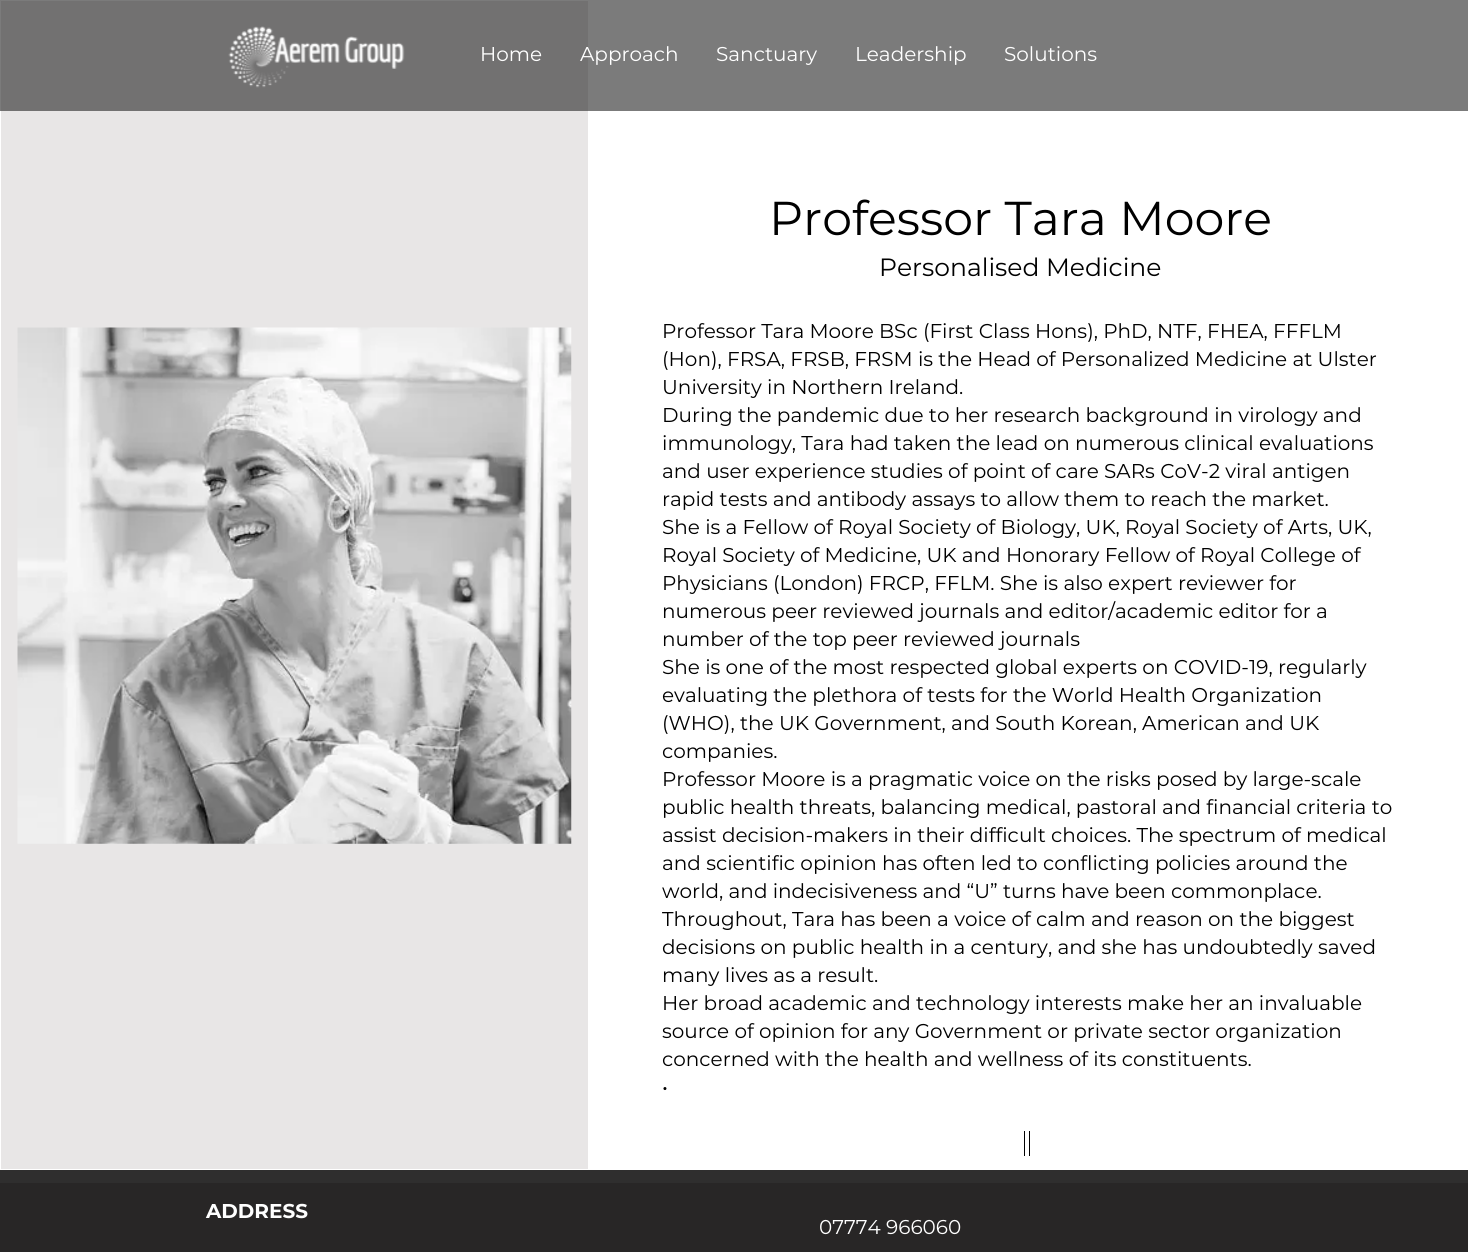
import math
import cairocffi as cairo

surface = cairo.ImageSurface(cairo.FORMAT_RGB24, 1468, 1252)
cr = cairo.Context(surface)
options = cairo.FontOptions()
options.set_hint_metrics(cairo.HINT_METRICS_OFF)
options.set_hint_style(cairo.HINT_STYLE_NONE)
cr.set_font_options(options)
cr.set_miter_limit(4)


def use_color(code):
    cr.set_source_rgb(*(v / 255 for v in bytes.fromhex(code[-6:])))


def picture(path, x, y, w, h):
    cr.save()
    cr.set_source_surface(cairo.ImageSurface.create_from_png(path), x, y)
    cr.rectangle(x, y, w, h)
    cr.fill()
    cr.restore()


use_color("#ffffff")
cr.paint()
use_color("#7b7b7b")
cr.rectangle(0, 0, 1468, 111)
cr.fill()
use_color("#727171")
cr.rectangle(1, 1, 587, 110)
cr.fill()
picture("img1.png", 228, 26, 177, 62)
cr.select_font_face("Montserrat")
cr.set_font_size(20)
use_color("#ffffff")
cr.move_to(480, 61)
cr.show_text("Home")
cr.move_to(580, 61)
cr.show_text("Approach")
cr.move_to(716, 61)
cr.show_text("Sanctuary")
cr.move_to(855, 61)
cr.show_text("Leadership")
cr.move_to(1004, 61)
cr.show_text("Solutions")
use_color("#e8e6e6")
cr.rectangle(1, 111, 587, 1058)
cr.fill()
picture("img2.png", 17, 327, 555, 517)
cr.set_font_size(47.5)
use_color("#000000")
cr.move_to(769, 235)
cr.show_text("Professor Tara Moore")
cr.set_font_size(25)
cr.move_to(879, 276)
cr.show_text("Personalised Medicine")
cr.set_font_size(20)
cr.move_to(662, 338)
cr.show_text("Professor Tara Moore BSc (First Class Hons), PhD, NTF, FHEA, FFFLM")
cr.move_to(662, 366)
cr.show_text("(Hon), FRSA, FRSB, FRSM is the Head of Personalized Medicine at Ulster")
cr.move_to(662, 394)
cr.show_text("University in Northern Ireland.")
cr.move_to(662, 422)
cr.show_text("During the pandemic due to her research background in virology and")
cr.move_to(662, 450)
cr.show_text("immunology, Tara had taken the lead on numerous clinical evaluations")
cr.move_to(662, 478)
cr.show_text("and user experience studies of point of care SARs CoV-2 viral antigen")
cr.move_to(662, 506)
cr.show_text("rapid tests and antibody assays to allow them to reach the market.")
cr.move_to(662, 534)
cr.show_text("She is a Fellow of Royal Society of Biology, UK, Royal Society of Arts, UK,")
cr.move_to(662, 562)
cr.show_text("Royal Society of Medicine, UK and Honorary Fellow of Royal College of")
cr.move_to(662, 590)
cr.show_text("Physicians (London) FRCP, FFLM. She is also expert reviewer for")
cr.move_to(662, 618)
cr.show_text("numerous peer reviewed journals and editor/academic editor for a")
cr.move_to(662, 646)
cr.show_text("number of the top peer reviewed journals")
cr.move_to(662, 674)
cr.show_text("She is one of the most respected global experts on COVID-19, regularly")
cr.move_to(662, 702)
cr.show_text("evaluating the plethora of tests for the World Health Organization")
cr.move_to(662, 730)
cr.show_text("(WHO), the UK Government, and South Korean, American and UK")
cr.move_to(662, 758)
cr.show_text("companies.")
cr.move_to(662, 786)
cr.show_text("Professor Moore is a pragmatic voice on the risks posed by large-scale")
cr.move_to(662, 814)
cr.show_text("public health threats, balancing medical, pastoral and financial criteria to")
cr.move_to(662, 842)
cr.show_text("assist decision-makers in their difficult choices. The spectrum of medical")
cr.move_to(662, 870)
cr.show_text("and scientific opinion has often led to conflicting policies around the")
cr.move_to(662, 898)
cr.show_text("world, and indecisiveness and “U” turns have been commonplace.")
cr.move_to(662, 926)
cr.show_text("Throughout, Tara has been a voice of calm and reason on the biggest")
cr.move_to(662, 954)
cr.show_text("decisions on public health in a century, and she has undoubtedly saved")
cr.move_to(662, 982)
cr.show_text("many lives as a result.")
cr.move_to(662, 1010)
cr.show_text("Her broad academic and technology interests make her an invaluable")
cr.move_to(662, 1038)
cr.show_text("source of opinion for any Government or private sector organization")
cr.move_to(662, 1066)
cr.show_text("concerned with the health and wellness of its constituents.")
cr.move_to(662, 1094)
cr.show_text("•")
cr.rectangle(1029, 1131, 1, 25)
cr.fill()
cr.rectangle(1024, 1131, 1, 25)
cr.fill()
use_color("#2f2e2e")
cr.rectangle(0, 1170, 1468, 13)
cr.fill()
use_color("#282626")
cr.rectangle(0, 1183, 1468, 69)
cr.fill()
cr.select_font_face("Montserrat", cairo.FONT_SLANT_NORMAL, cairo.FONT_WEIGHT_BOLD)
use_color("#ffffff")
cr.move_to(206, 1218)
cr.show_text("ADDRESS")
cr.select_font_face("Montserrat")
cr.move_to(819, 1234)
cr.show_text("07774 966060")
surface.write_to_png("result.png")
